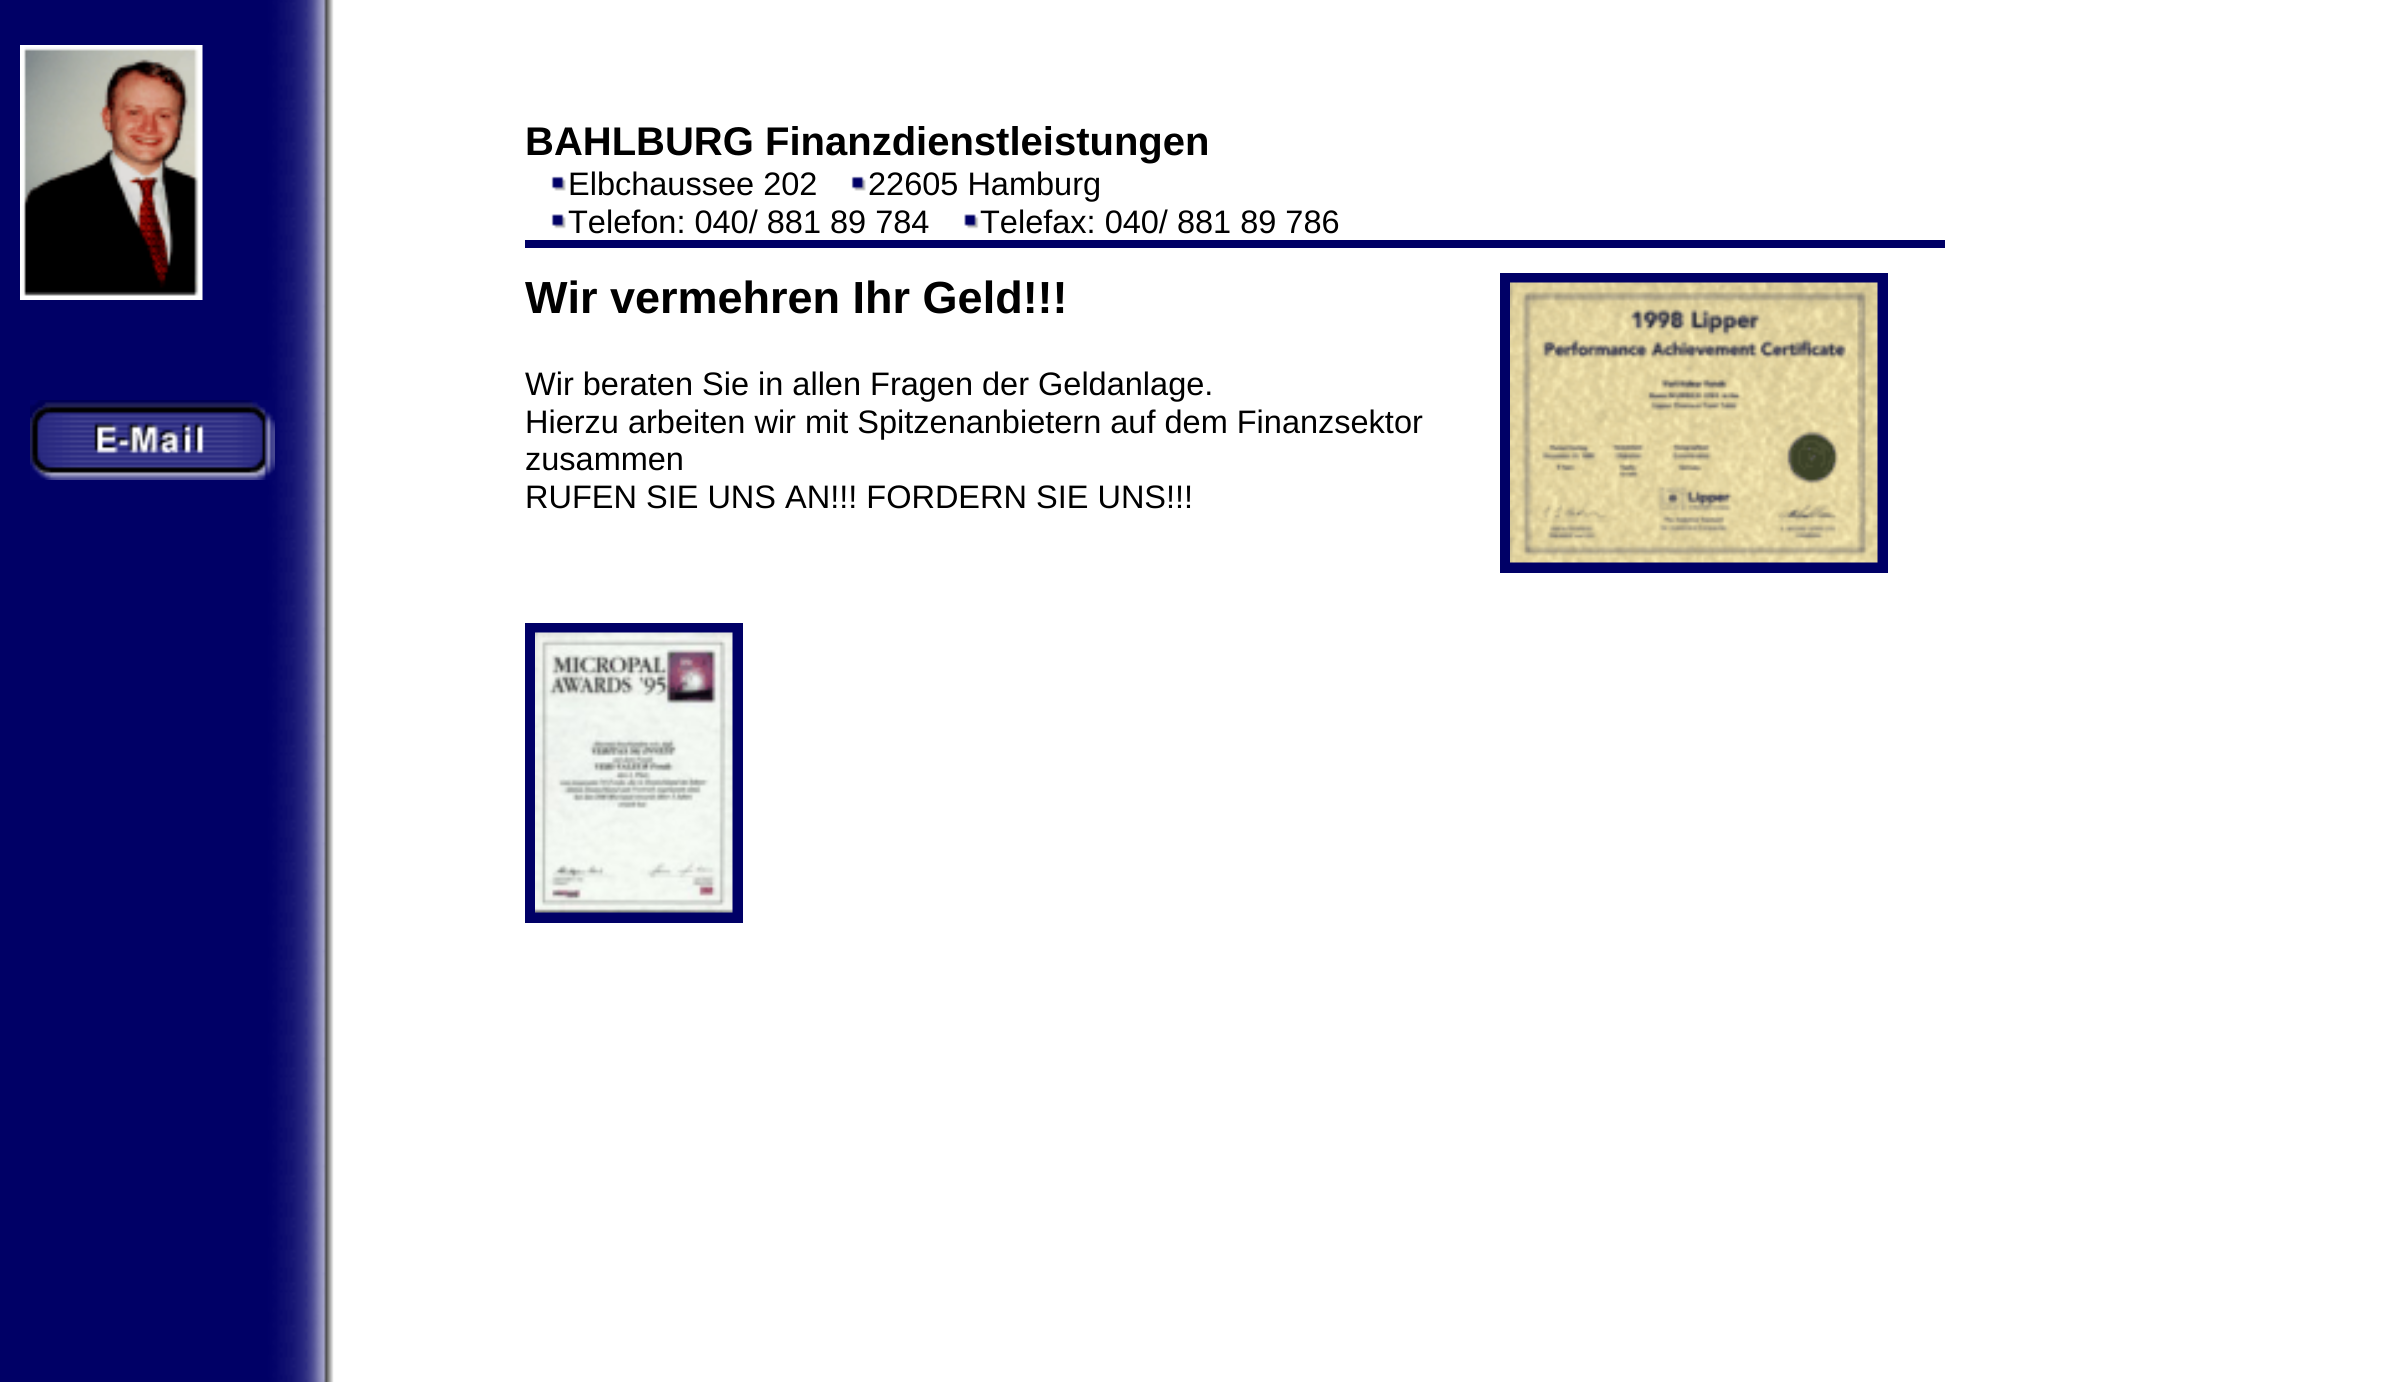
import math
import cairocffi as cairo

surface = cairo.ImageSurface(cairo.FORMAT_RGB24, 2400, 1382)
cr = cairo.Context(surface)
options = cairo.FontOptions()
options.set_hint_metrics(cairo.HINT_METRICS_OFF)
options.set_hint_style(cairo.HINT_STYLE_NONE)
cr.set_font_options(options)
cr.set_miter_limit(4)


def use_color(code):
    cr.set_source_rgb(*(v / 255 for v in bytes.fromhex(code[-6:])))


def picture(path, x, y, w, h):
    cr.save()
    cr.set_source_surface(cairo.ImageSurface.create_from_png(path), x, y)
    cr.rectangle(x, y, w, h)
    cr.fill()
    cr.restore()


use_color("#ffffff")
cr.paint()
picture("img1.png", 0, 0, 334, 1382)
picture("img2.png", 20, 45, 183, 255)
picture("img3.png", 30, 400, 245, 80)
cr.select_font_face("Liberation Sans", cairo.FONT_SLANT_NORMAL, cairo.FONT_WEIGHT_BOLD)
cr.set_font_size(40)
use_color("#000000")
cr.move_to(525, 155)
cr.show_text("BAHLBURG Finanzdienstleistungen")
picture("img4.png", 551, 176, 15, 15)
cr.select_font_face("Liberation Sans")
cr.set_font_size(32.5)
cr.move_to(568, 195)
cr.show_text("Elbchaussee 202")
picture("img5.png", 851, 176, 15, 15)
cr.move_to(868, 195)
cr.show_text("22605 Hamburg")
picture("img6.png", 551, 214, 15, 15)
cr.move_to(568, 233)
cr.show_text("Telefon: 040/ 881 89 784")
picture("img7.png", 964, 214, 15, 15)
cr.move_to(980, 233)
cr.show_text("Telefax: 040/ 881 89 786")
use_color("#000066")
cr.rectangle(525, 240, 1420, 8)
cr.fill()
cr.select_font_face("Liberation Sans", cairo.FONT_SLANT_NORMAL, cairo.FONT_WEIGHT_BOLD)
cr.set_font_size(45)
use_color("#000000")
cr.move_to(525, 313)
cr.show_text("Wir vermehren Ihr Geld!!!")
cr.select_font_face("Liberation Sans")
cr.set_font_size(32.5)
cr.move_to(525, 395)
cr.show_text("Wir beraten Sie in allen Fragen der Geldanlage.")
cr.move_to(525, 433)
cr.show_text("Hierzu arbeiten wir mit Spitzenanbietern auf dem Finanzsektor")
cr.move_to(525, 470)
cr.show_text("zusammen")
cr.move_to(525, 508)
cr.show_text("RUFEN SIE UNS AN!!! FORDERN SIE UNS!!!")
use_color("#000066")
cr.rectangle(1500, 273, 388, 300)
cr.fill()
picture("img8.png", 1510, 282, 368, 281)
cr.rectangle(525, 623, 218, 300)
cr.fill()
picture("img9.png", 535, 632, 198, 281)
surface.write_to_png("result.png")
